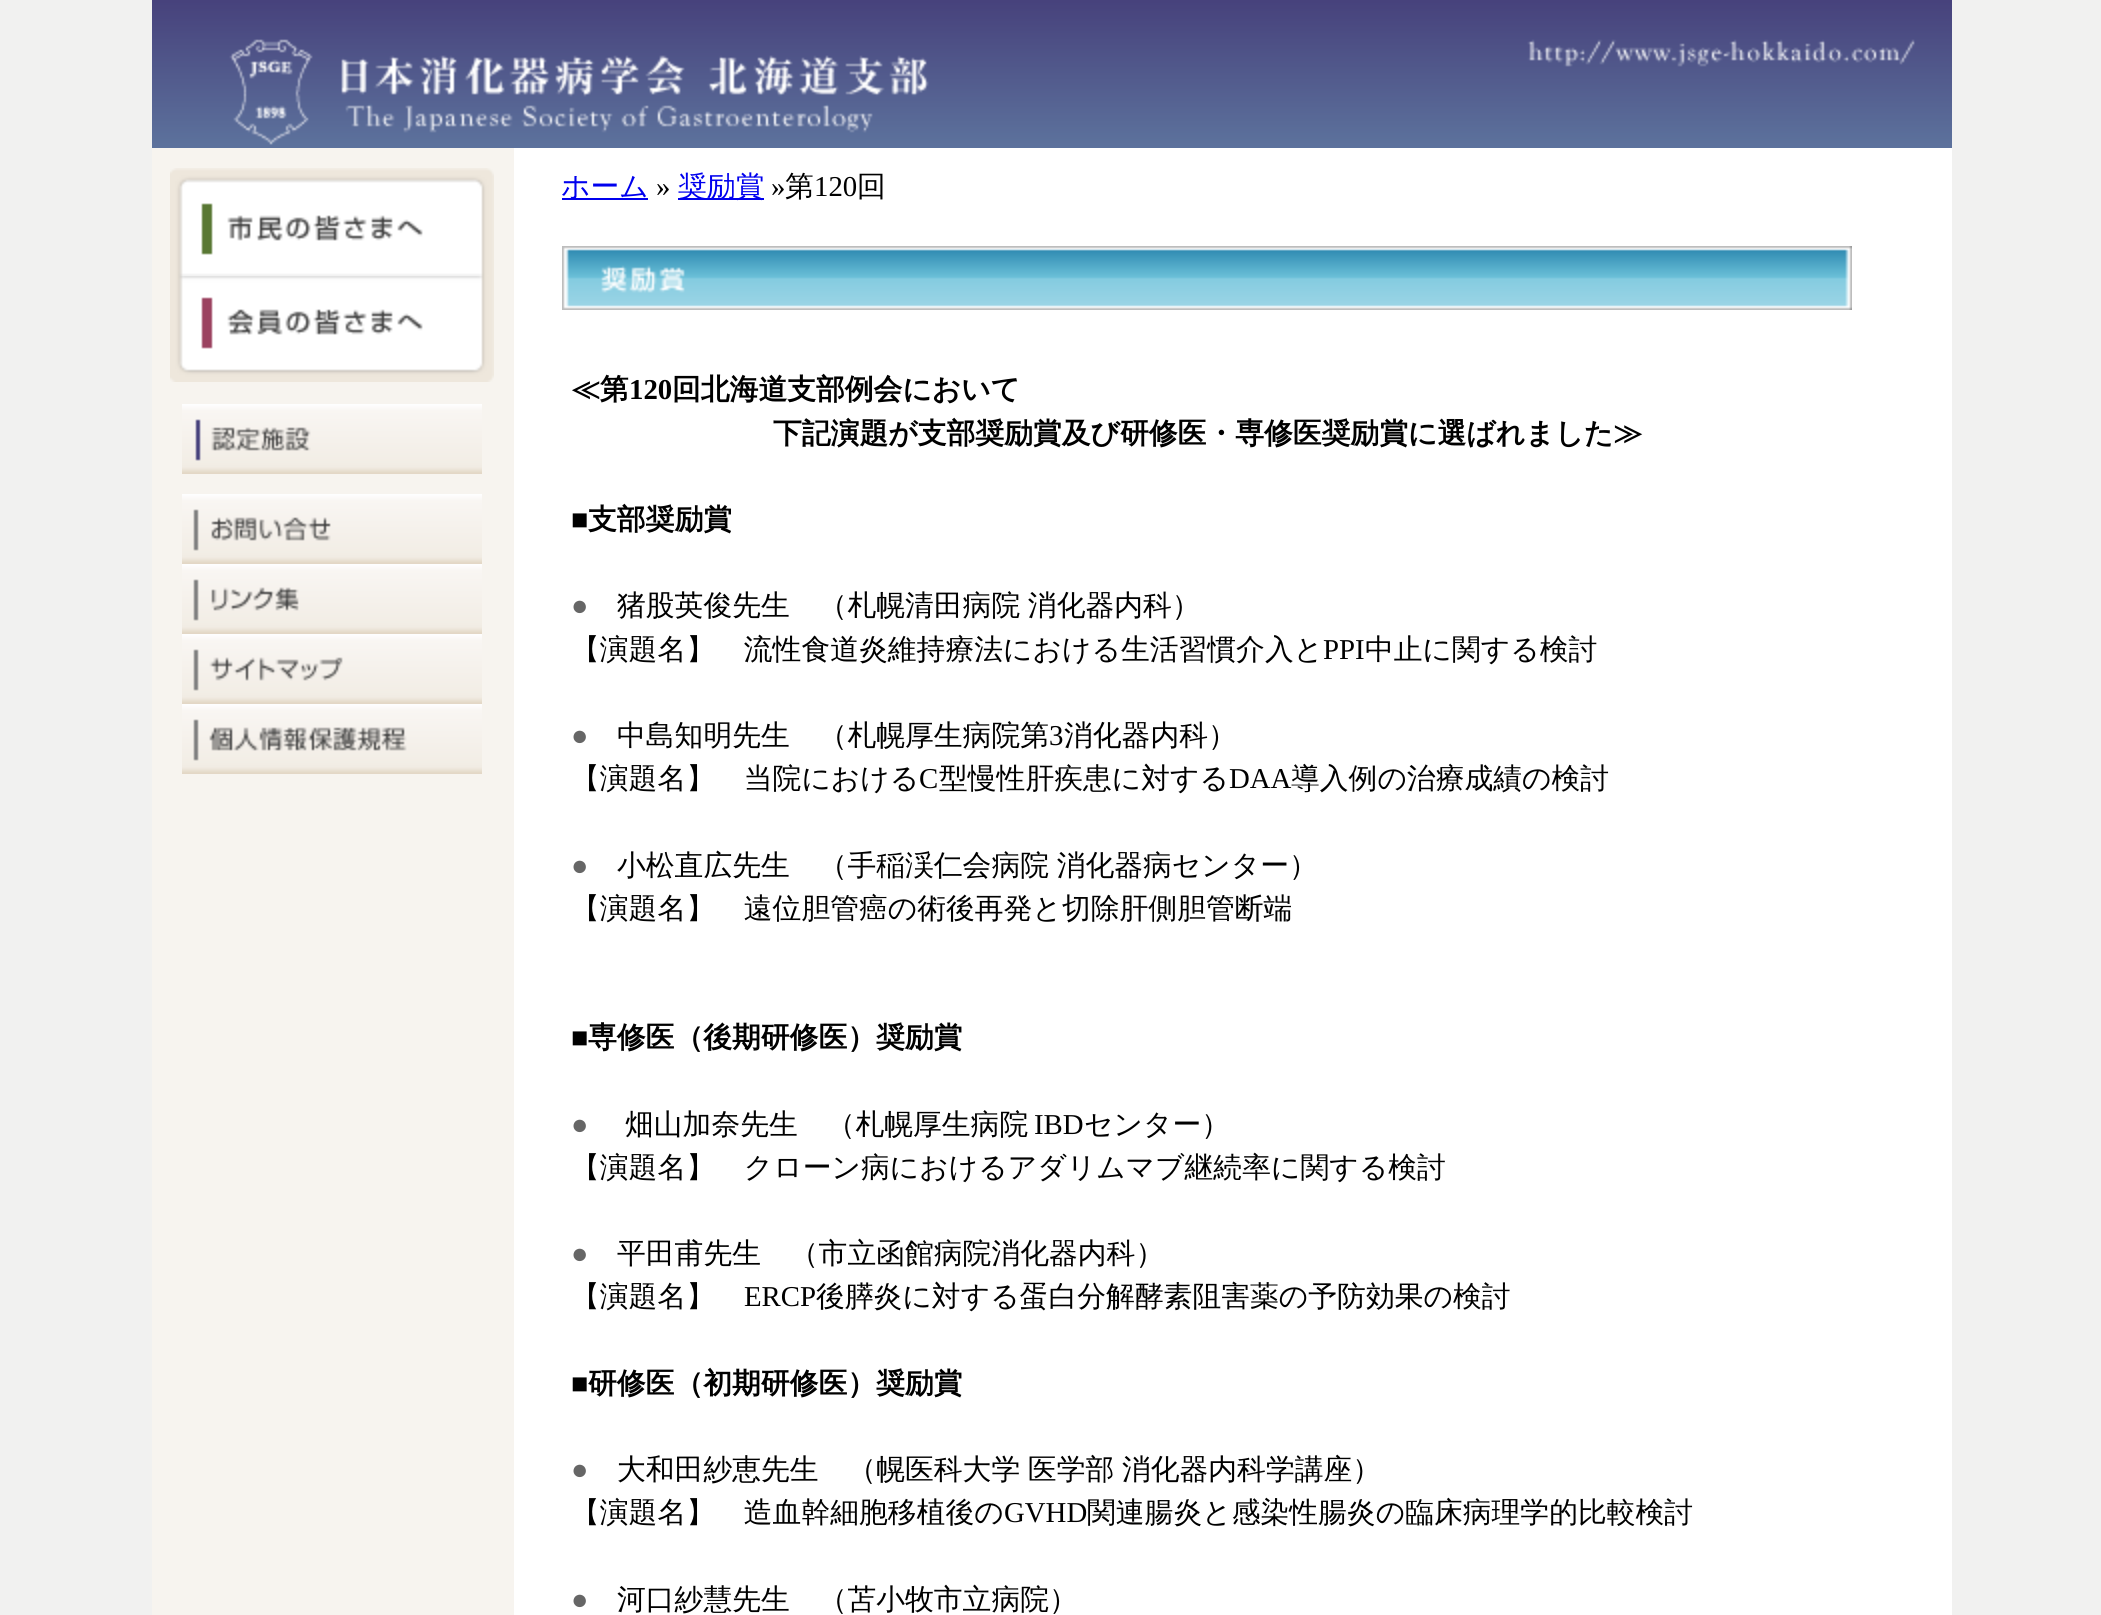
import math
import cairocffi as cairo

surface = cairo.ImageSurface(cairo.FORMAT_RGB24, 2101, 1615)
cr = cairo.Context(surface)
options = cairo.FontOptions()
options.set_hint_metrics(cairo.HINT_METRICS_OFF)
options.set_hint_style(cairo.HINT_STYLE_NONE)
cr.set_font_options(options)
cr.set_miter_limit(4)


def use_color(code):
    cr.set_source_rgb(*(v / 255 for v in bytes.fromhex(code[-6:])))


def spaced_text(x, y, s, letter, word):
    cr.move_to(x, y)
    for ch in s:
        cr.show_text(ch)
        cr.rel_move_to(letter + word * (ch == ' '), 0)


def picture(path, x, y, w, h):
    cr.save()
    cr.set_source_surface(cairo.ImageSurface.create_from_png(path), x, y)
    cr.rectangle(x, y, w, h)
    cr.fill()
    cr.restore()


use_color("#f1f1f0")
cr.paint()
picture("img1.png", 152, 0, 1800, 148)
use_color("#ffffff")
cr.rectangle(514, 148, 1438, 1467)
cr.fill()
use_color("#f7f4ef")
cr.rectangle(152, 148, 362, 1467)
cr.fill()
picture("img2.png", 170, 168, 324, 108)
picture("img3.png", 170, 276, 324, 106)
picture("img4.png", 182, 404, 300, 70)
picture("img5.png", 182, 494, 300, 70)
picture("img6.png", 182, 564, 300, 70)
picture("img7.png", 182, 634, 300, 70)
picture("img8.png", 182, 704, 300, 70)
use_color("#0000ee")
cr.rectangle(562, 198, 86, 2)
cr.fill()
cr.select_font_face("WenQuanYi Zen Hei Medium")
cr.set_font_size(28.8)
cr.move_to(561, 196)
cr.show_text("ホーム")
cr.select_font_face("Liberation Serif")
use_color("#000000")
cr.move_to(656, 196)
cr.show_text("»")
use_color("#0000ee")
cr.rectangle(678, 198, 86, 2)
cr.fill()
cr.select_font_face("WenQuanYi Zen Hei Medium")
cr.move_to(678, 196)
cr.show_text("奨励賞")
cr.select_font_face("Liberation Serif")
use_color("#000000")
cr.move_to(771, 196)
cr.show_text("»")
cr.select_font_face("WenQuanYi Zen Hei Medium")
cr.move_to(785, 196)
cr.show_text("第")
cr.select_font_face("Liberation Serif")
cr.move_to(814, 196)
cr.show_text("120")
cr.select_font_face("WenQuanYi Zen Hei Medium")
cr.move_to(857, 196)
cr.show_text("回")
picture("img9.png", 562, 246, 1290, 64)
cr.select_font_face("WenQuanYi Zen Hei", cairo.FONT_SLANT_NORMAL, cairo.FONT_WEIGHT_BOLD)
cr.move_to(571, 399)
cr.show_text("≪第")
cr.select_font_face("Liberation Serif", cairo.FONT_SLANT_NORMAL, cairo.FONT_WEIGHT_BOLD)
cr.move_to(629, 399)
cr.show_text("120")
cr.select_font_face("WenQuanYi Zen Hei", cairo.FONT_SLANT_NORMAL, cairo.FONT_WEIGHT_BOLD)
cr.move_to(672, 399)
cr.show_text("回北海道支部例会において")
cr.move_to(773, 443)
cr.show_text("下記演題が支部奨励賞及び研修医・専修医奨励賞に選ばれました≫")
cr.select_font_face("Liberation Serif", cairo.FONT_SLANT_NORMAL, cairo.FONT_WEIGHT_BOLD)
cr.move_to(571, 529)
cr.show_text("■")
cr.select_font_face("WenQuanYi Zen Hei", cairo.FONT_SLANT_NORMAL, cairo.FONT_WEIGHT_BOLD)
cr.move_to(588, 529)
cr.show_text("支部奨励賞")
cr.select_font_face("Liberation Serif")
use_color("#666666")
cr.move_to(571, 615)
cr.show_text("●")
cr.select_font_face("WenQuanYi Zen Hei Medium")
use_color("#000000")
spaced_text(617, 615, "猪股英俊先生　（札幌清田病院 消化器内科）", 0, -1)
cr.move_to(571, 659)
cr.show_text("【演題名】　流性食道炎維持療法における生活習慣介入と")
cr.select_font_face("Liberation Serif")
cr.move_to(1323, 659)
cr.show_text("PPI")
cr.select_font_face("WenQuanYi Zen Hei Medium")
cr.move_to(1365, 659)
cr.show_text("中止に関する検討")
cr.select_font_face("Liberation Serif")
use_color("#666666")
cr.move_to(571, 745)
cr.show_text("●")
cr.select_font_face("WenQuanYi Zen Hei Medium")
use_color("#000000")
cr.move_to(617, 745)
cr.show_text("中島知明先生　（札幌厚生病院第")
cr.select_font_face("Liberation Serif")
cr.move_to(1049, 745)
cr.show_text("3")
cr.select_font_face("WenQuanYi Zen Hei Medium")
cr.move_to(1064, 745)
cr.show_text("消化器内科）")
cr.move_to(571, 788)
cr.show_text("【演題名】　当院における")
cr.select_font_face("Liberation Serif")
cr.move_to(919, 788)
cr.show_text("C")
cr.select_font_face("WenQuanYi Zen Hei Medium")
cr.move_to(939, 788)
cr.show_text("型慢性肝疾患に対する")
cr.select_font_face("Liberation Serif")
cr.move_to(1229, 788)
cr.show_text("DAA")
cr.select_font_face("WenQuanYi Zen Hei Medium")
cr.move_to(1291, 788)
cr.show_text("導入例の治療成績の検討")
cr.select_font_face("Liberation Serif")
use_color("#666666")
cr.move_to(571, 875)
cr.show_text("●")
cr.select_font_face("WenQuanYi Zen Hei Medium")
use_color("#000000")
spaced_text(617, 875, "小松直広先生　（手稲渓仁会病院 消化器病センター）", 0, -1)
cr.move_to(571, 918)
cr.show_text("【演題名】　遠位胆管癌の術後再発と切除肝側胆管断端")
cr.select_font_face("Liberation Serif", cairo.FONT_SLANT_NORMAL, cairo.FONT_WEIGHT_BOLD)
cr.move_to(571, 1047)
cr.show_text("■")
cr.select_font_face("WenQuanYi Zen Hei", cairo.FONT_SLANT_NORMAL, cairo.FONT_WEIGHT_BOLD)
cr.move_to(588, 1047)
cr.show_text("専修医（後期研修医）奨励賞")
cr.select_font_face("Liberation Serif")
use_color("#666666")
cr.move_to(571, 1134)
cr.show_text("●")
cr.select_font_face("WenQuanYi Zen Hei Medium")
use_color("#000000")
cr.move_to(625, 1134)
cr.show_text("畑山加奈先生　（札幌厚生病院")
cr.select_font_face("Liberation Serif")
cr.move_to(1034, 1134)
cr.show_text("IBD")
cr.select_font_face("WenQuanYi Zen Hei Medium")
cr.move_to(1084, 1134)
cr.show_text("センター）")
cr.move_to(571, 1177)
cr.show_text("【演題名】　クローン病におけるアダリムマブ継続率に関する検討")
cr.select_font_face("Liberation Serif")
use_color("#666666")
cr.move_to(571, 1263)
cr.show_text("●")
cr.select_font_face("WenQuanYi Zen Hei Medium")
use_color("#000000")
cr.move_to(617, 1263)
cr.show_text("平田甫先生　（市立函館病院消化器内科）")
cr.move_to(571, 1306)
cr.show_text("【演題名】")
cr.select_font_face("Liberation Serif")
cr.move_to(744, 1306)
cr.show_text("ERCP")
cr.select_font_face("WenQuanYi Zen Hei Medium")
cr.move_to(816, 1306)
cr.show_text("後膵炎に対する蛋白分解酵素阻害薬の予防効果の検討")
cr.select_font_face("Liberation Serif", cairo.FONT_SLANT_NORMAL, cairo.FONT_WEIGHT_BOLD)
cr.move_to(571, 1393)
cr.show_text("■")
cr.select_font_face("WenQuanYi Zen Hei", cairo.FONT_SLANT_NORMAL, cairo.FONT_WEIGHT_BOLD)
cr.move_to(588, 1393)
cr.show_text("研修医（初期研修医）奨励賞")
cr.select_font_face("Liberation Serif")
use_color("#666666")
cr.move_to(571, 1479)
cr.show_text("●")
cr.select_font_face("WenQuanYi Zen Hei Medium")
use_color("#000000")
spaced_text(617, 1479, "大和田紗恵先生　（幌医科大学 医学部 消化器内科学講座）", 0, -1)
cr.move_to(571, 1522)
cr.show_text("【演題名】　造血幹細胞移植後の")
cr.select_font_face("Liberation Serif")
cr.move_to(1004, 1522)
cr.show_text("GVHD")
cr.select_font_face("WenQuanYi Zen Hei Medium")
cr.move_to(1087, 1522)
cr.show_text("関連腸炎と感染性腸炎の臨床病理学的比較検討")
cr.select_font_face("Liberation Serif")
use_color("#666666")
cr.move_to(571, 1609)
cr.show_text("●")
cr.select_font_face("WenQuanYi Zen Hei Medium")
use_color("#000000")
cr.move_to(617, 1609)
cr.show_text("河口紗慧先生　（苫小牧市立病院）")
surface.write_to_png("result.png")
